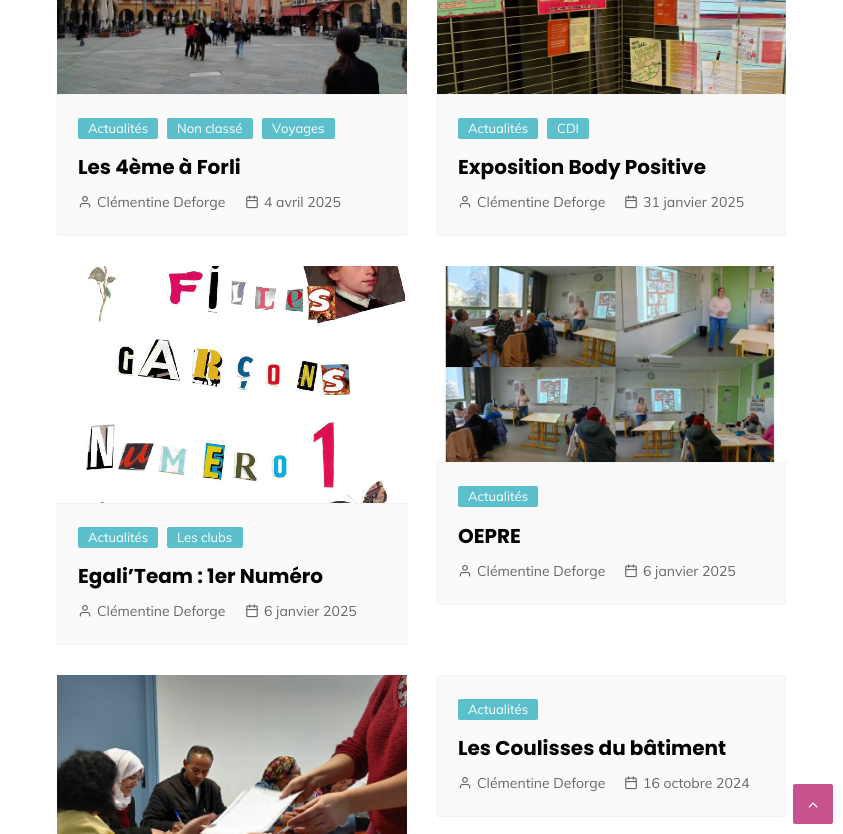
import math
import cairocffi as cairo

surface = cairo.ImageSurface(cairo.FORMAT_RGB24, 843, 834)
cr = cairo.Context(surface)
options = cairo.FontOptions()
options.set_hint_metrics(cairo.HINT_METRICS_OFF)
options.set_hint_style(cairo.HINT_STYLE_NONE)
cr.set_font_options(options)
cr.set_miter_limit(4)


def use_color(code):
    cr.set_source_rgb(*(v / 255 for v in bytes.fromhex(code[-6:])))


def round_rect(x, y, w, h, r):
    cr.new_sub_path()
    for i, (u, v) in enumerate([(x + w - r, y + h - r), (x + r, y + h - r), (x + r, y + r), (x + w - r, y + r)]):
        cr.arc(u, v, r, i * math.pi / 2, (i + 1) * math.pi / 2)
    cr.close_path()


def picture(path, x, y, w, h):
    cr.save()
    cr.set_source_surface(cairo.ImageSurface.create_from_png(path), x, y)
    cr.rectangle(x, y, w, h)
    cr.fill()
    cr.restore()


use_color("#ffffff")
cr.paint()
picture("img1.png", 57, 0, 350, 94)
use_color("#fafafa")
cr.rectangle(57.5, 94.5, 349, 141)
cr.fill_preserve()
use_color("#f3f3f3")
cr.set_line_width(1)
cr.stroke()
use_color("#5bc0cc")
round_rect(78, 118, 80, 21, 2)
cr.fill()
cr.select_font_face("Muli")
cr.set_font_size(13)
use_color("#ffffff")
cr.move_to(88, 133)
cr.show_text("Actualités")
use_color("#5bc0cc")
round_rect(167, 118, 86, 21, 2)
cr.fill()
use_color("#ffffff")
cr.move_to(177, 133)
cr.show_text("Non classé")
use_color("#5bc0cc")
round_rect(262, 118, 73, 21, 2)
cr.fill()
use_color("#ffffff")
cr.move_to(272, 133)
cr.show_text("Voyages")
cr.select_font_face("Poppins", cairo.FONT_SLANT_NORMAL, cairo.FONT_WEIGHT_BOLD)
cr.set_font_size(20)
use_color("#010101")
cr.move_to(78, 174)
cr.show_text("Les 4ème à Forli")
picture("img2.png", 79, 196, 12, 12)
cr.select_font_face("Muli")
cr.set_font_size(14)
use_color("#666666")
cr.move_to(97, 207)
cr.show_text("Clémentine Deforge")
picture("img3.png", 246, 195, 12, 14)
cr.move_to(264, 207)
cr.show_text("4 avril 2025")
picture("img4.png", 437, 0, 349, 94)
use_color("#fafafa")
cr.rectangle(437.5, 94.5, 348, 141)
cr.fill_preserve()
use_color("#f3f3f3")
cr.stroke()
use_color("#5bc0cc")
round_rect(458, 118, 80, 21, 2)
cr.fill()
cr.set_font_size(13)
use_color("#ffffff")
cr.move_to(468, 133)
cr.show_text("Actualités")
use_color("#5bc0cc")
round_rect(547, 118, 42, 21, 2)
cr.fill()
use_color("#ffffff")
cr.move_to(557, 133)
cr.show_text("CDI")
cr.select_font_face("Poppins", cairo.FONT_SLANT_NORMAL, cairo.FONT_WEIGHT_BOLD)
cr.set_font_size(20)
use_color("#010101")
cr.move_to(458, 174)
cr.show_text("Exposition Body Positive")
picture("img2.png", 459, 196, 12, 12)
cr.select_font_face("Muli")
cr.set_font_size(14)
use_color("#666666")
cr.move_to(477, 207)
cr.show_text("Clémentine Deforge")
picture("img3.png", 625, 195, 12, 14)
cr.move_to(643, 207)
cr.show_text("31 janvier 2025")
picture("img5.png", 78, 266, 328, 237)
use_color("#fafafa")
cr.rectangle(57.5, 503.5, 349, 141)
cr.fill_preserve()
use_color("#f3f3f3")
cr.stroke()
use_color("#5bc0cc")
round_rect(78, 527, 80, 21, 2)
cr.fill()
cr.set_font_size(13)
use_color("#ffffff")
cr.move_to(88, 542)
cr.show_text("Actualités")
use_color("#5bc0cc")
round_rect(167, 527, 76, 21, 2)
cr.fill()
use_color("#ffffff")
cr.move_to(177, 542)
cr.show_text("Les clubs")
cr.select_font_face("Poppins", cairo.FONT_SLANT_NORMAL, cairo.FONT_WEIGHT_BOLD)
cr.set_font_size(20)
use_color("#010101")
cr.move_to(78, 583)
cr.show_text("Egali’Team : 1er Numéro")
picture("img2.png", 79, 605, 12, 12)
cr.select_font_face("Muli")
cr.set_font_size(14)
use_color("#666666")
cr.move_to(97, 616)
cr.show_text("Clémentine Deforge")
picture("img3.png", 246, 604, 12, 14)
cr.move_to(264, 616)
cr.show_text("6 janvier 2025")
picture("img6.png", 444, 266, 335, 196)
use_color("#fafafa")
cr.rectangle(437.5, 462.5, 348, 142)
cr.fill_preserve()
use_color("#f3f3f3")
cr.stroke()
use_color("#5bc0cc")
round_rect(458, 486, 80, 21, 2)
cr.fill()
cr.set_font_size(13)
use_color("#ffffff")
cr.move_to(468, 501)
cr.show_text("Actualités")
cr.select_font_face("Poppins", cairo.FONT_SLANT_NORMAL, cairo.FONT_WEIGHT_BOLD)
cr.set_font_size(20)
use_color("#010101")
cr.move_to(458, 543)
cr.show_text("OEPRE")
picture("img2.png", 459, 565, 12, 12)
cr.select_font_face("Muli")
cr.set_font_size(14)
use_color("#666666")
cr.move_to(477, 576)
cr.show_text("Clémentine Deforge")
picture("img3.png", 625, 564, 12, 14)
cr.move_to(643, 576)
cr.show_text("6 janvier 2025")
picture("img7.png", 57, 675, 350, 159)
use_color("#fafafa")
cr.rectangle(437.5, 675.5, 348, 141)
cr.fill_preserve()
use_color("#f3f3f3")
cr.stroke()
use_color("#5bc0cc")
round_rect(458, 699, 80, 21, 2)
cr.fill()
cr.set_font_size(13)
use_color("#ffffff")
cr.move_to(468, 714)
cr.show_text("Actualités")
cr.select_font_face("Poppins", cairo.FONT_SLANT_NORMAL, cairo.FONT_WEIGHT_BOLD)
cr.set_font_size(20)
use_color("#010101")
cr.move_to(458, 755)
cr.show_text("Les Coulisses du bâtiment")
picture("img2.png", 459, 777, 12, 12)
cr.select_font_face("Muli")
cr.set_font_size(14)
use_color("#666666")
cr.move_to(477, 788)
cr.show_text("Clémentine Deforge")
picture("img3.png", 625, 776, 12, 14)
cr.move_to(643, 788)
cr.show_text("16 octobre 2024")
use_color("#c6538d")
round_rect(793, 784, 40, 40, 2)
cr.fill()
picture("img8.png", 808, 802, 10, 6)
surface.write_to_png("result.png")
